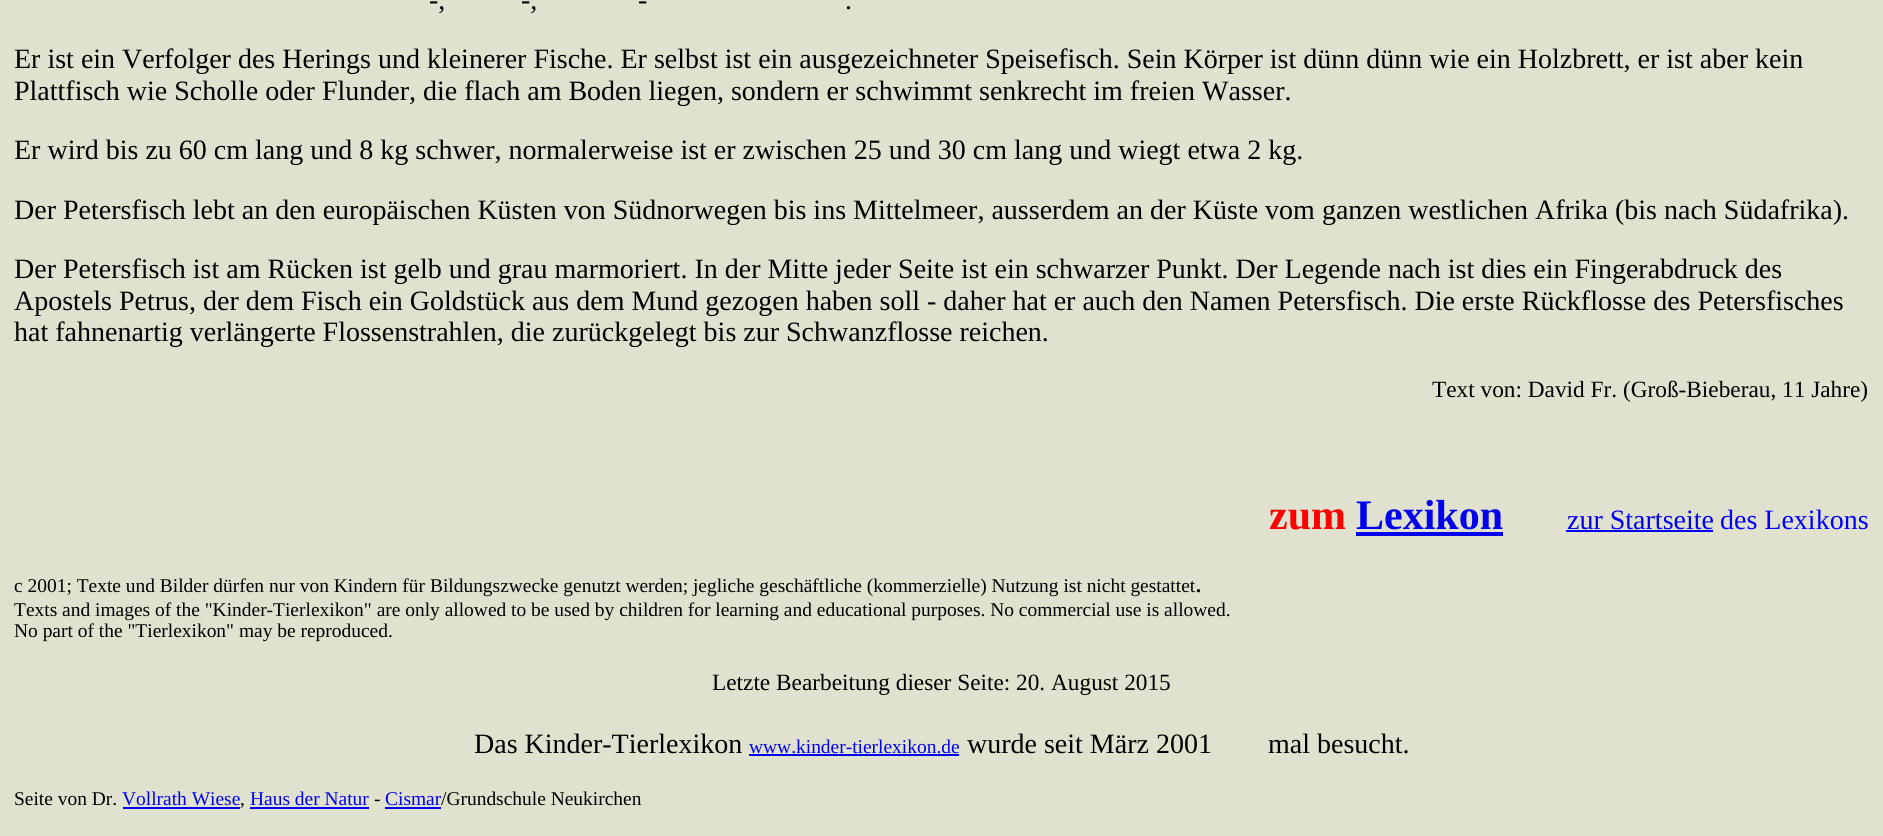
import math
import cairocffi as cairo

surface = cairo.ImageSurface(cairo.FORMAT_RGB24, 1883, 836)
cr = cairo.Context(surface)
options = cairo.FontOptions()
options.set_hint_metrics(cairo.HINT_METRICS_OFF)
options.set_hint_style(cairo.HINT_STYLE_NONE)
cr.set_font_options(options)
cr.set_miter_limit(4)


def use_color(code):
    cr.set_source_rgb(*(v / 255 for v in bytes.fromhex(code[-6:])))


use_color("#e0e2cf")
cr.paint()
cr.select_font_face("Liberation Serif")
cr.set_font_size(28)
use_color("#000000")
cr.move_to(429, 9)
cr.show_text("-,")
cr.move_to(521, 9)
cr.show_text("-,")
cr.move_to(638, 9)
cr.show_text("-")
cr.move_to(845, 9)
cr.show_text(".")
cr.move_to(14, 68)
cr.show_text("Er ist ein Verfolger des Herings und kleinerer Fische. Er selbst ist ein ausgezeichneter Speisefisch. Sein Körper ist dünn dünn wie ein Holzbrett, er ist aber kein")
cr.move_to(14, 100)
cr.show_text("Plattfisch wie Scholle oder Flunder, die flach am Boden liegen, sondern er schwimmt senkrecht im freien Wasser.")
cr.move_to(14, 159)
cr.show_text("Er wird bis zu 60 cm lang und 8 kg schwer, normalerweise ist er zwischen 25 und 30 cm lang und wiegt etwa 2 kg.")
cr.move_to(14, 219)
cr.show_text("Der Petersfisch lebt an den europäischen Küsten von Südnorwegen bis ins Mittelmeer, ausserdem an der Küste vom ganzen westlichen Afrika (bis nach Südafrika).")
cr.move_to(14, 278)
cr.show_text("Der Petersfisch ist am Rücken ist gelb und grau marmoriert. In der Mitte jeder Seite ist ein schwarzer Punkt. Der Legende nach ist dies ein Fingerabdruck des")
cr.move_to(14, 310)
cr.show_text("Apostels Petrus, der dem Fisch ein Goldstück aus dem Mund gezogen haben soll - daher hat er auch den Namen Petersfisch. Die erste Rückflosse des Petersfisches")
cr.move_to(14, 341)
cr.show_text("hat fahnenartig verlängerte Flossenstrahlen, die zurückgelegt bis zur Schwanzflosse reichen.")
cr.set_font_size(23.3)
cr.move_to(1432, 397)
cr.show_text("Text von: David Fr. (Groß-Bieberau, 11 Jahre)")
cr.select_font_face("Liberation Serif", cairo.FONT_SLANT_NORMAL, cairo.FONT_WEIGHT_BOLD)
cr.set_font_size(42)
use_color("#ff0000")
cr.move_to(1269, 529)
cr.show_text("zum")
use_color("#0000ee")
cr.rectangle(1356, 532, 147, 4)
cr.fill()
cr.move_to(1356, 529)
cr.show_text("Lexikon")
cr.select_font_face("Liberation Serif")
cr.set_font_size(28)
cr.move_to(1567, 529)
cr.show_text("zur Startseite")
cr.rectangle(1566, 530, 147, 2)
cr.fill()
use_color("#0000ff")
cr.move_to(1720, 529)
cr.show_text("des Lexikons")
cr.set_font_size(19.45)
use_color("#000000")
cr.move_to(14, 592)
cr.show_text("c 2001; Texte und Bilder dürfen nur von Kindern für Bildungszwecke genutzt werden; jegliche geschäftliche (kommerzielle) Nutzung ist nicht gestattet")
cr.set_font_size(28)
cr.move_to(1195, 592)
cr.show_text(".")
cr.set_font_size(19.45)
cr.move_to(14, 616)
cr.show_text("Texts and images of the \"Kinder-Tierlexikon\" are only allowed to be used by children for learning and educational purposes. No commercial use is allowed.")
cr.move_to(14, 637)
cr.show_text("No part of the \"Tierlexikon\" may be reproduced.")
cr.set_font_size(23.3)
cr.move_to(712, 690)
cr.show_text("Letzte Bearbeitung dieser Seite: 20. August 2015")
cr.set_font_size(28)
cr.move_to(474, 753)
cr.show_text("Das Kinder-Tierlexikon")
cr.set_font_size(19.45)
use_color("#0000ee")
cr.move_to(749, 753)
cr.show_text("www.kinder-tierlexikon.de")
cr.rectangle(749, 754, 210, 2)
cr.fill()
cr.set_font_size(28)
use_color("#000000")
cr.move_to(967, 753)
cr.show_text("wurde seit März 2001")
cr.move_to(1268, 753)
cr.show_text("mal besucht.")
cr.set_font_size(19.45)
cr.move_to(14, 805)
cr.show_text("Seite von Dr.")
use_color("#0000ee")
cr.move_to(122, 805)
cr.show_text("Vollrath Wiese")
cr.move_to(250, 805)
cr.show_text("Haus der Natur")
use_color("#000000")
cr.move_to(374, 805)
cr.show_text("-")
use_color("#0000ee")
cr.move_to(385, 805)
cr.show_text("Cismar")
cr.rectangle(385, 807, 56, 2)
cr.fill()
use_color("#000000")
cr.move_to(441, 805)
cr.show_text("/Grundschule Neukirchen")
cr.move_to(240, 805)
cr.show_text(",")
use_color("#0000ee")
cr.rectangle(123, 807, 117, 2)
cr.fill()
cr.rectangle(250, 807, 119, 2)
cr.fill()
surface.write_to_png("result.png")
